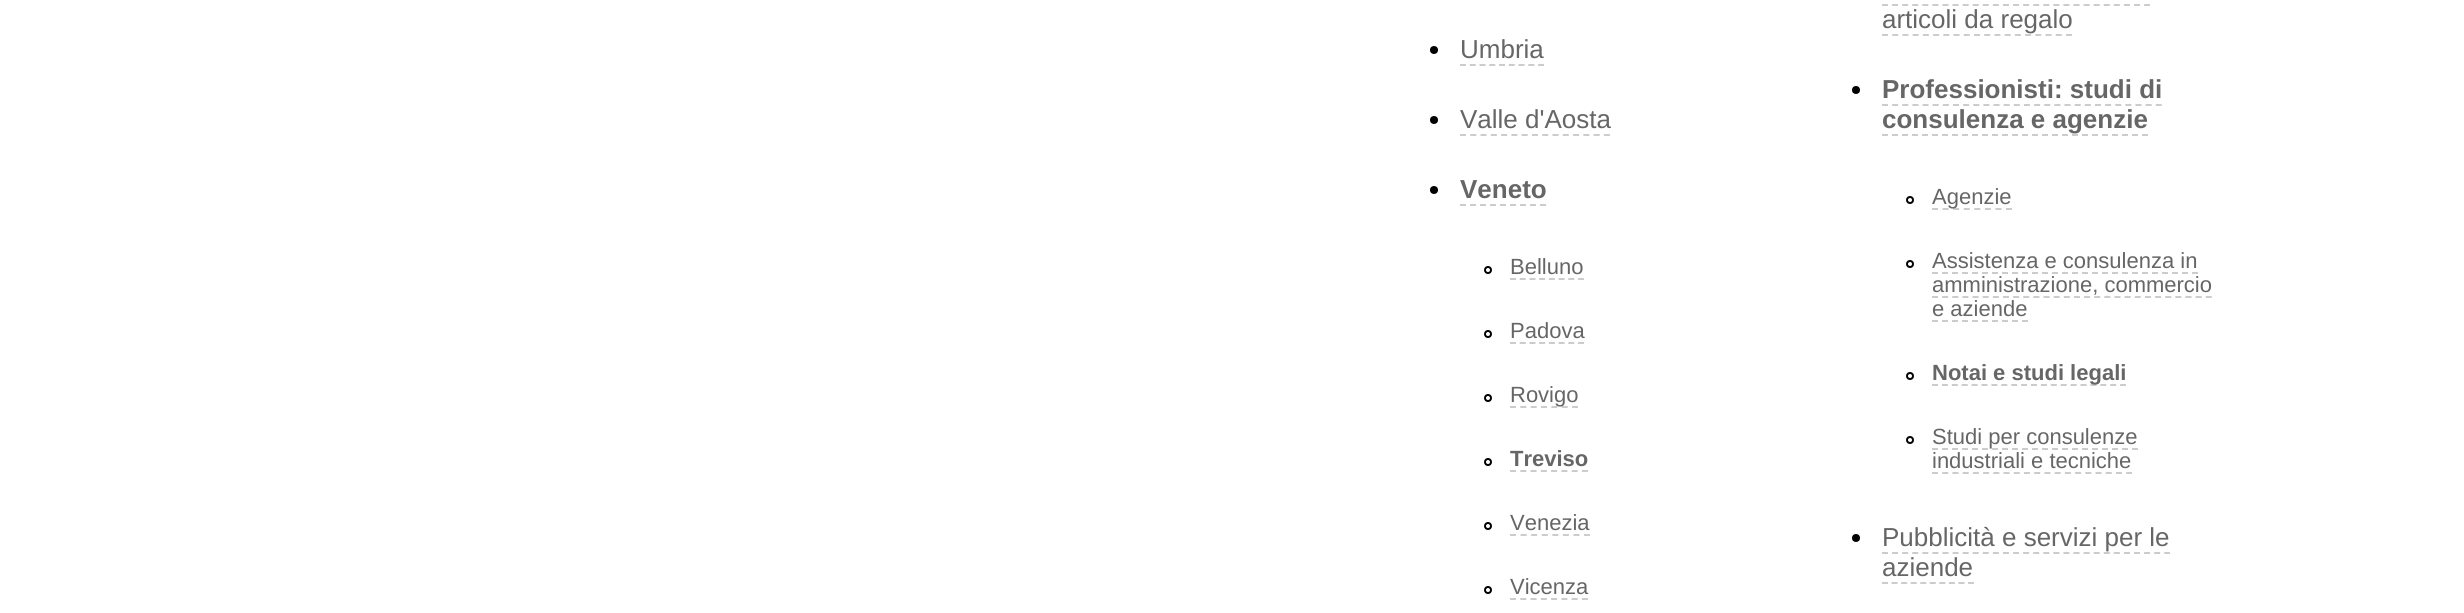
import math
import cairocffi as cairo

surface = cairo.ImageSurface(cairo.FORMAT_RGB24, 2464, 613)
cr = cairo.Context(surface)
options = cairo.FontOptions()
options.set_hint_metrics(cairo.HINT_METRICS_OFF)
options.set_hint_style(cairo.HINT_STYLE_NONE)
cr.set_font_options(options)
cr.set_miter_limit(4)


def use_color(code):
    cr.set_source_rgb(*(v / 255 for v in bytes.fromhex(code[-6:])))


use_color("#ffffff")
cr.paint()
use_color("#000000")
cr.arc(1434, 50, 4, 0, 2 * math.pi)
cr.fill()
cr.select_font_face("Liberation Sans")
cr.set_font_size(26)
use_color("#666666")
cr.move_to(1460, 58)
cr.show_text("Umbria")
cr.new_path()
cr.move_to(1460, 65)
cr.line_to(1544, 65)
use_color("#cccccc")
cr.set_dash([6, 3.76])
cr.stroke()
use_color("#000000")
cr.arc(1434, 120, 4, 0, 2 * math.pi)
cr.fill()
use_color("#666666")
cr.move_to(1460, 128)
cr.show_text("Valle d'Aosta")
cr.new_path()
cr.move_to(1460, 135)
cr.line_to(1610, 135)
use_color("#cccccc")
cr.set_dash([6, 4.28])
cr.stroke()
use_color("#000000")
cr.arc(1434, 190, 4, 0, 2 * math.pi)
cr.fill()
cr.select_font_face("Liberation Sans", cairo.FONT_SLANT_NORMAL, cairo.FONT_WEIGHT_BOLD)
use_color("#666666")
cr.move_to(1460, 198)
cr.show_text("Veneto")
cr.new_path()
cr.move_to(1460, 205)
cr.line_to(1546, 205)
use_color("#cccccc")
cr.set_dash([6, 4])
cr.stroke()
cr.arc(1488, 270, 3, 0, 2 * math.pi)
use_color("#000000")
cr.set_dash([])
cr.stroke()
cr.select_font_face("Liberation Sans")
cr.set_font_size(22)
use_color("#666666")
cr.move_to(1510, 274)
cr.show_text("Belluno")
cr.new_path()
cr.move_to(1510, 279)
cr.line_to(1584, 279)
use_color("#cccccc")
cr.set_dash([6, 3.72])
cr.stroke()
cr.arc(1488, 334, 3, 0, 2 * math.pi)
use_color("#000000")
cr.set_dash([])
cr.stroke()
use_color("#666666")
cr.move_to(1510, 338)
cr.show_text("Padova")
cr.new_path()
cr.move_to(1510, 343)
cr.line_to(1584, 343)
use_color("#cccccc")
cr.set_dash([6, 3.72])
cr.stroke()
cr.arc(1488, 398, 3, 0, 2 * math.pi)
use_color("#000000")
cr.set_dash([])
cr.stroke()
cr.new_path()
cr.move_to(1510, 407)
cr.line_to(1578, 407)
use_color("#cccccc")
cr.set_dash([6, 4.34])
cr.stroke()
use_color("#666666")
cr.move_to(1510, 402)
cr.show_text("Rovigo")
cr.new_path()
cr.arc(1488, 462, 3, 0, 2 * math.pi)
use_color("#000000")
cr.set_dash([])
cr.stroke()
cr.select_font_face("Liberation Sans", cairo.FONT_SLANT_NORMAL, cairo.FONT_WEIGHT_BOLD)
use_color("#666666")
cr.move_to(1510, 466)
cr.show_text("Treviso")
cr.new_path()
cr.move_to(1510, 471)
cr.line_to(1588, 471)
use_color("#cccccc")
cr.set_dash([6, 4.28])
cr.stroke()
cr.arc(1488, 526, 3, 0, 2 * math.pi)
use_color("#000000")
cr.set_dash([])
cr.stroke()
cr.select_font_face("Liberation Sans")
use_color("#666666")
cr.move_to(1510, 530)
cr.show_text("Venezia")
cr.new_path()
cr.move_to(1510, 535)
cr.line_to(1590, 535)
use_color("#cccccc")
cr.set_dash([6, 4.58])
cr.stroke()
cr.arc(1488, 590, 3, 0, 2 * math.pi)
use_color("#000000")
cr.set_dash([])
cr.stroke()
use_color("#666666")
cr.move_to(1510, 594)
cr.show_text("Vicenza")
cr.new_path()
cr.move_to(1510, 599)
cr.line_to(1588, 599)
use_color("#cccccc")
cr.set_dash([6, 4.28])
cr.stroke()
cr.set_font_size(26)
use_color("#666666")
cr.move_to(1882, 28)
cr.show_text("articoli da regalo")
cr.new_path()
cr.move_to(1882, 5)
cr.line_to(2150, 5)
use_color("#cccccc")
cr.set_dash([6, 4.08])
cr.stroke()
cr.new_path()
cr.move_to(1882, 35)
cr.line_to(2072, 35)
cr.set_dash([6, 4.22])
cr.stroke()
use_color("#000000")
cr.arc(1856, 90, 4, 0, 2 * math.pi)
cr.fill()
cr.select_font_face("Liberation Sans", cairo.FONT_SLANT_NORMAL, cairo.FONT_WEIGHT_BOLD)
use_color("#666666")
cr.move_to(1882, 98)
cr.show_text("Professionisti: studi di")
cr.new_path()
cr.move_to(1882, 105)
cr.line_to(2162, 105)
use_color("#cccccc")
cr.set_dash([6, 4.14])
cr.stroke()
use_color("#666666")
cr.move_to(1882, 128)
cr.show_text("consulenza e agenzie")
cr.new_path()
cr.move_to(1882, 135)
cr.line_to(2148, 135)
use_color("#cccccc")
cr.set_dash([6, 4])
cr.stroke()
cr.arc(1910, 200, 3, 0, 2 * math.pi)
use_color("#000000")
cr.set_dash([])
cr.stroke()
cr.new_path()
cr.move_to(1932, 209)
cr.line_to(2012, 209)
use_color("#cccccc")
cr.set_dash([6, 4.58])
cr.stroke()
cr.select_font_face("Liberation Sans")
cr.set_font_size(22)
use_color("#666666")
cr.move_to(1932, 204)
cr.show_text("Agenzie")
cr.new_path()
cr.arc(1910, 264, 3, 0, 2 * math.pi)
use_color("#000000")
cr.set_dash([])
cr.stroke()
use_color("#666666")
cr.move_to(1932, 268)
cr.show_text("Assistenza e consulenza in")
cr.new_path()
cr.move_to(1932, 273)
cr.line_to(2198, 273)
use_color("#cccccc")
cr.set_dash([6, 4])
cr.stroke()
use_color("#666666")
cr.move_to(1932, 292)
cr.show_text("amministrazione, commercio")
cr.new_path()
cr.move_to(1932, 297)
cr.line_to(2212, 297)
use_color("#cccccc")
cr.set_dash([6, 4.14])
cr.stroke()
use_color("#666666")
cr.move_to(1932, 316)
cr.show_text("e aziende")
cr.new_path()
cr.move_to(1932, 321)
cr.line_to(2028, 321)
use_color("#cccccc")
cr.set_dash([6, 4])
cr.stroke()
cr.arc(1910, 376, 3, 0, 2 * math.pi)
use_color("#000000")
cr.set_dash([])
cr.stroke()
cr.new_path()
cr.move_to(1932, 385)
cr.line_to(2126, 385)
use_color("#cccccc")
cr.set_dash([6, 3.9])
cr.stroke()
cr.select_font_face("Liberation Sans", cairo.FONT_SLANT_NORMAL, cairo.FONT_WEIGHT_BOLD)
use_color("#666666")
cr.move_to(1932, 380)
cr.show_text("Notai e studi legali")
cr.new_path()
cr.arc(1910, 440, 3, 0, 2 * math.pi)
use_color("#000000")
cr.set_dash([])
cr.stroke()
cr.new_path()
cr.move_to(1932, 449)
cr.line_to(2138, 449)
use_color("#cccccc")
cr.set_dash([6, 4])
cr.stroke()
cr.select_font_face("Liberation Sans")
use_color("#666666")
cr.move_to(1932, 444)
cr.show_text("Studi per consulenze")
cr.move_to(1932, 468)
cr.show_text("industriali e tecniche")
cr.new_path()
cr.move_to(1932, 473)
cr.line_to(2132, 473)
use_color("#cccccc")
cr.set_dash([6, 4.22])
cr.stroke()
use_color("#000000")
cr.arc(1856, 538, 4, 0, 2 * math.pi)
cr.fill()
cr.set_font_size(26)
use_color("#666666")
cr.move_to(1882, 546)
cr.show_text("Pubblicità e servizi per le")
cr.new_path()
cr.move_to(1882, 553)
cr.line_to(2170, 553)
use_color("#cccccc")
cr.set_dash([6, 4.08])
cr.stroke()
use_color("#666666")
cr.move_to(1882, 576)
cr.show_text("aziende")
cr.new_path()
cr.move_to(1882, 583)
cr.line_to(1974, 583)
use_color("#cccccc")
cr.set_dash([6, 3.56])
cr.stroke()
surface.write_to_png("result.png")
